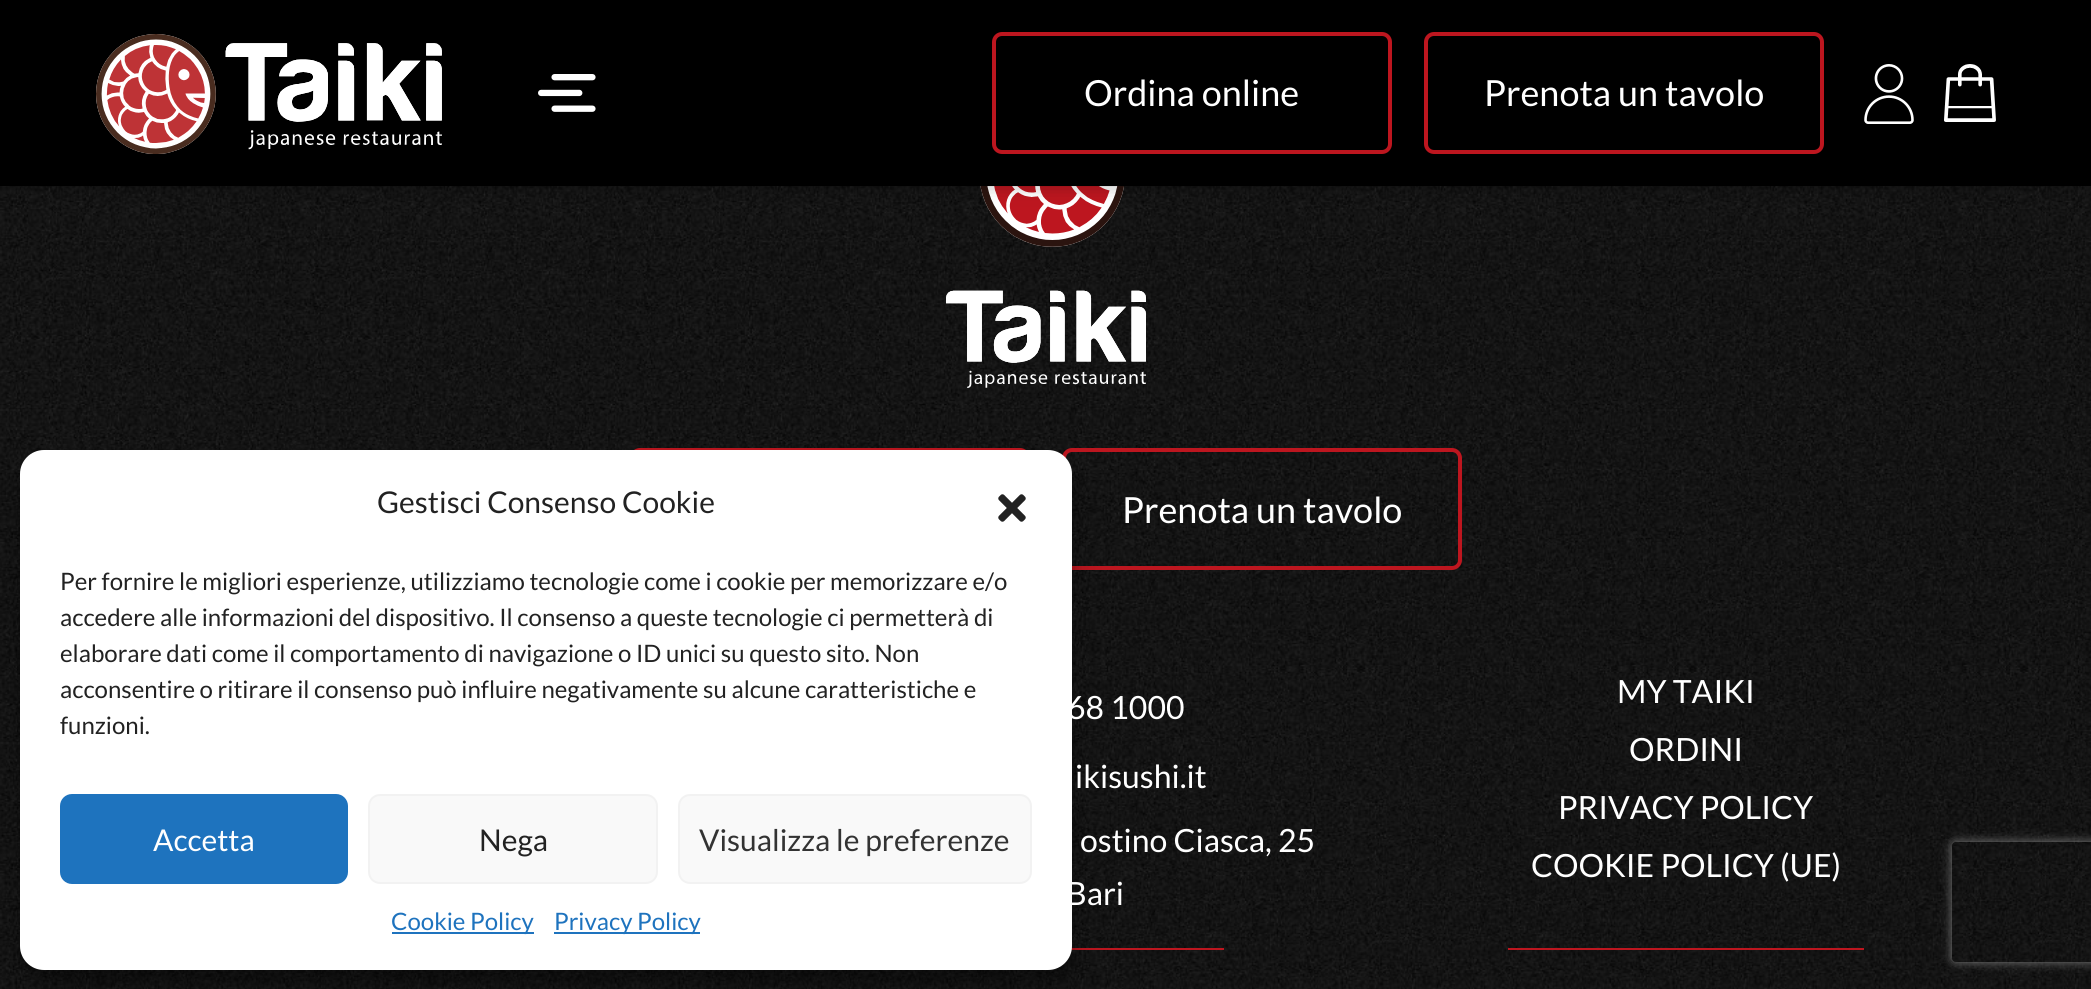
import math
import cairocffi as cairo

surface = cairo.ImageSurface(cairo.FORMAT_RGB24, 2091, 989)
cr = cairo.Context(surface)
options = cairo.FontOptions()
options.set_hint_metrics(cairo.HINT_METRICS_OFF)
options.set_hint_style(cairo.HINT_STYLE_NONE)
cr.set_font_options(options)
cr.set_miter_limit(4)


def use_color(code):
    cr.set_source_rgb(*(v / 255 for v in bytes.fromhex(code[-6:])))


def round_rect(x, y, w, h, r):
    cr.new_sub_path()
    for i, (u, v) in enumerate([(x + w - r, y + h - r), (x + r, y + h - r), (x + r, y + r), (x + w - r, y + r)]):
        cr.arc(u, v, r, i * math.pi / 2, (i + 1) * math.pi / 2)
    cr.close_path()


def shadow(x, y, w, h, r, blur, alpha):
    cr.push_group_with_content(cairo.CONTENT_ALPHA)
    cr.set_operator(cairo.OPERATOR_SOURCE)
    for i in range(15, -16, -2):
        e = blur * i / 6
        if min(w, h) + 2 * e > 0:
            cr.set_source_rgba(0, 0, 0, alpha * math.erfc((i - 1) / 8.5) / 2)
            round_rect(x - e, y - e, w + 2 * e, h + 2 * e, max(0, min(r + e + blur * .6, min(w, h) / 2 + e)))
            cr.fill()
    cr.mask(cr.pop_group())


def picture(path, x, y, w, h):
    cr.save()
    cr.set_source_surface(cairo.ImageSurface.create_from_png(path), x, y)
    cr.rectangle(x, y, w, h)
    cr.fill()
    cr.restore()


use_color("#ffffff")
cr.paint()
picture("img6.png", 0, 186, 2091, 803)
round_rect(632, 450, 396, 118, 8)
use_color("#bd161f")
cr.set_line_width(4)
cr.stroke()
round_rect(1064, 450, 396, 118, 8)
cr.stroke()
cr.rectangle(1071, 948, 153, 2)
cr.fill()
use_color("#000000")
shadow(20, 462, 1052, 520, 24, 6, 0.23)
shadow(20, 470, 1052, 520, 24, 20, 0.19)
use_color("#ffffff")
round_rect(20, 450, 1052, 520, 24)
cr.fill()
cr.select_font_face("Lato")
cr.set_font_size(30)
use_color("#222222")
cr.move_to(377, 513)
cr.show_text("Gestisci Consenso Cookie")
picture("img1.png", 998, 494, 28, 28)
cr.set_font_size(24)
cr.move_to(60, 590)
cr.show_text("Per fornire le migliori esperienze, utilizziamo tecnologie come i cookie per memorizzare e/o")
cr.move_to(60, 626)
cr.show_text("accedere alle informazioni del dispositivo. Il consenso a queste tecnologie ci permetterà di")
cr.move_to(60, 662)
cr.show_text("elaborare dati come il comportamento di navigazione o ID unici su questo sito. Non")
cr.move_to(60, 698)
cr.show_text("acconsentire o ritirare il consenso può influire negativamente su alcune caratteristiche e")
cr.move_to(60, 734)
cr.show_text("funzioni.")
use_color("#1e73be")
round_rect(61, 795, 286, 88, 11)
cr.fill_preserve()
cr.set_line_width(2)
cr.stroke()
cr.set_font_size(30)
use_color("#ffffff")
cr.move_to(153, 851)
cr.show_text("Accetta")
use_color("#f9f9f9")
round_rect(369, 795, 288, 88, 11)
cr.fill_preserve()
use_color("#f2f2f2")
cr.stroke()
use_color("#222222")
cr.move_to(479, 851)
cr.show_text("Nega")
use_color("#f9f9f9")
round_rect(679, 795, 352, 88, 11)
cr.fill_preserve()
use_color("#f2f2f2")
cr.stroke()
use_color("#333333")
cr.move_to(699, 851)
cr.show_text("Visualizza le preferenze")
use_color("#1e73be")
cr.rectangle(392, 932, 142, 2)
cr.fill()
cr.set_font_size(24)
cr.move_to(391, 930)
cr.show_text("Cookie Policy")
cr.rectangle(554, 932, 146, 2)
cr.fill()
cr.move_to(554, 930)
cr.show_text("Privacy Policy")
picture("img7.png", 946, 186, 200, 202)
use_color("#000000")
shadow(10, 28, 2060, 154, 0, 10, 0.42)
use_color("#000000")
cr.rectangle(0, 0, 2091, 186)
cr.fill()
picture("img2.png", 96, 34, 346, 120)
picture("img3.png", 538, 74, 58, 38)
round_rect(994, 34, 396, 118, 8)
use_color("#bd161f")
cr.set_line_width(4)
cr.stroke()
cr.set_font_size(36)
use_color("#ffffff")
cr.move_to(1084, 106)
cr.show_text("Ordina online")
round_rect(1426, 34, 396, 118, 8)
use_color("#bd161f")
cr.stroke()
use_color("#ffffff")
cr.move_to(1484, 106)
cr.show_text("Prenota un tavolo")
picture("img4.png", 1864, 64, 50, 60)
picture("img5.png", 1944, 64, 52, 58)
cr.move_to(1122, 523)
cr.show_text("Prenota un tavolo")
cr.set_font_size(32)
cr.move_to(1067, 719)
cr.show_text("68 1000")
cr.move_to(1075, 788)
cr.show_text("ikisushi.it")
cr.move_to(1080, 852)
cr.show_text("ostino Ciasca, 25")
cr.move_to(1066, 905)
cr.show_text("Bari")
cr.move_to(1617, 703)
cr.show_text("MY TAIKI")
cr.move_to(1629, 761)
cr.show_text("ORDINI")
cr.move_to(1558, 819)
cr.show_text("PRIVACY POLICY")
cr.move_to(1531, 877)
cr.show_text("COOKIE POLICY (UE)")
use_color("#bd161f")
cr.rectangle(1508, 948, 356, 2)
cr.fill()
cr.save()
cr.set_fill_rule(cairo.FILL_RULE_EVEN_ODD)
cr.new_path()
cr.move_to(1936, 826)
cr.line_to(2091, 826)
cr.line_to(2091, 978)
cr.line_to(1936, 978)
cr.close_path()
cr.move_to(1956, 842)
cr.line_to(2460, 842)
cr.curve_to(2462, 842, 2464, 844, 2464, 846)
cr.line_to(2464, 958)
cr.curve_to(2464, 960, 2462, 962, 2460, 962)
cr.line_to(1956, 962)
cr.curve_to(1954, 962, 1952, 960, 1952, 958)
cr.line_to(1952, 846)
cr.curve_to(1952, 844, 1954, 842, 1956, 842)
cr.close_path()
cr.clip()
use_color("#808080")
shadow(1952, 842, 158, 120, 4, 5, 1)
cr.restore()
surface.write_to_png("result.png")
